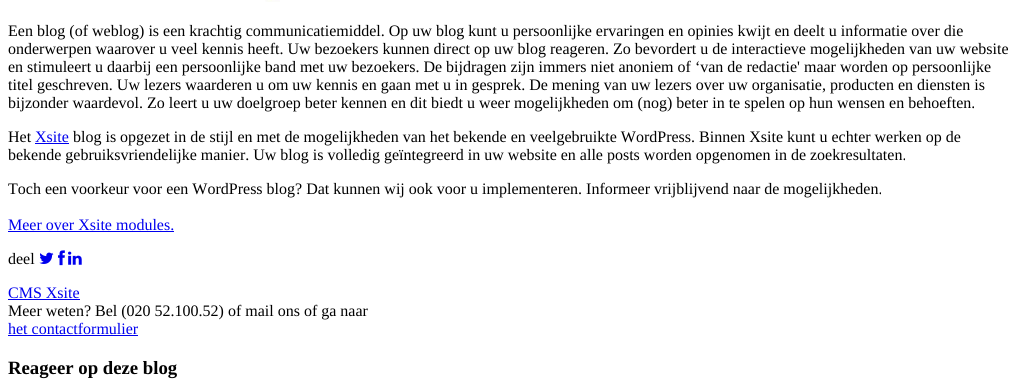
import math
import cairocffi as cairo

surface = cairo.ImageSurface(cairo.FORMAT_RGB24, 1023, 385)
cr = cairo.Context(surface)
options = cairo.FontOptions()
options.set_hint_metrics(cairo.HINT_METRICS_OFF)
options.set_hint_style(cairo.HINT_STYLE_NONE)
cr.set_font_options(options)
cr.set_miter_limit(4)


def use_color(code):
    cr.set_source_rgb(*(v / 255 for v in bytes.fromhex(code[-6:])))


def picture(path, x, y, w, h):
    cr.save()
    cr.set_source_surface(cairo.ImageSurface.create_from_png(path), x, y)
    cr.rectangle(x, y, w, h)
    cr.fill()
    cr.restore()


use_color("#ffffff")
cr.paint()
picture("img1.png", 265, 0, 15, 2)
cr.select_font_face("Liberation Serif")
cr.set_font_size(16)
use_color("#000000")
cr.move_to(8, 36)
cr.show_text("Een blog (of weblog) is een krachtig communicatiemiddel. Op uw blog kunt u persoonlijke ervaringen en opinies kwijt en deelt u informatie over die")
cr.move_to(8, 54)
cr.show_text("onderwerpen waarover u veel kennis heeft. Uw bezoekers kunnen direct op uw blog reageren. Zo bevordert u de interactieve mogelijkheden van uw website")
cr.move_to(8, 72)
cr.show_text("en stimuleert u daarbij een persoonlijke band met uw bezoekers. De bijdragen zijn immers niet anoniem of ‘van de redactie' maar worden op persoonlijke")
cr.move_to(8, 90)
cr.show_text("titel geschreven. Uw lezers waarderen u om uw kennis en gaan met u in gesprek. De mening van uw lezers over uw organisatie, producten en diensten is")
cr.move_to(8, 108)
cr.show_text("bijzonder waardevol. Zo leert u uw doelgroep beter kennen en dit biedt u weer mogelijkheden om (nog) beter in te spelen op hun wensen en behoeften.")
cr.move_to(8, 142)
cr.show_text("Het")
use_color("#0000ee")
cr.move_to(35, 142)
cr.show_text("Xsite")
cr.rectangle(35, 143, 34, 1)
cr.fill()
use_color("#000000")
cr.move_to(73, 142)
cr.show_text("blog is opgezet in de stijl en met de mogelijkheden van het bekende en veelgebruikte WordPress. Binnen Xsite kunt u echter werken op de")
cr.move_to(8, 160)
cr.show_text("bekende gebruiksvriendelijke manier. Uw blog is volledig geïntegreerd in uw website en alle posts worden opgenomen in de zoekresultaten.")
cr.move_to(8, 194)
cr.show_text("Toch een voorkeur voor een WordPress blog? Dat kunnen wij ook voor u implementeren. Informeer vrijblijvend naar de mogelijkheden.")
use_color("#0000ee")
cr.move_to(8, 230)
cr.show_text("Meer over Xsite modules.")
cr.rectangle(8, 231, 166, 1)
cr.fill()
use_color("#000000")
cr.move_to(8, 264)
cr.show_text("deel")
picture("img2.png", 39, 252, 15, 12)
picture("img3.png", 58, 250, 7, 16)
picture("img4.png", 68, 251, 14, 14)
use_color("#0000ee")
cr.move_to(8, 298)
cr.show_text("CMS Xsite")
cr.rectangle(8, 299, 72, 1)
cr.fill()
use_color("#000000")
cr.move_to(8, 316)
cr.show_text("Meer weten? Bel (020 52.100.52) of mail ons of ga naar")
use_color("#0000ee")
cr.move_to(8, 334)
cr.show_text("het contactformulier")
cr.rectangle(8, 335, 130, 1)
cr.fill()
cr.select_font_face("Liberation Serif", cairo.FONT_SLANT_NORMAL, cairo.FONT_WEIGHT_BOLD)
cr.set_font_size(18.75)
use_color("#000000")
cr.move_to(8, 374)
cr.show_text("Reageer op deze blog")
surface.write_to_png("result.png")
